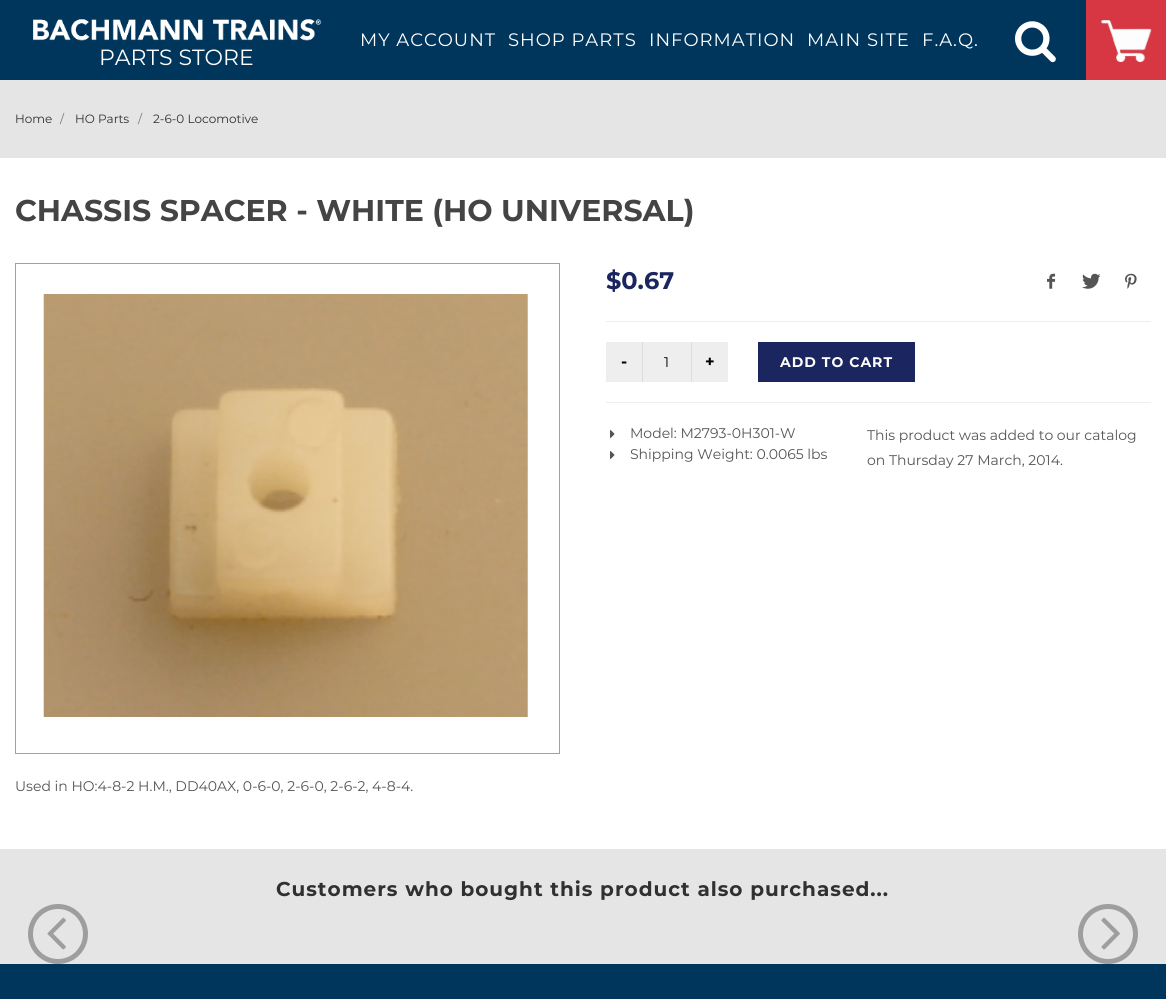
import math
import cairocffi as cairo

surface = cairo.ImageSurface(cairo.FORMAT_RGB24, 1166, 999)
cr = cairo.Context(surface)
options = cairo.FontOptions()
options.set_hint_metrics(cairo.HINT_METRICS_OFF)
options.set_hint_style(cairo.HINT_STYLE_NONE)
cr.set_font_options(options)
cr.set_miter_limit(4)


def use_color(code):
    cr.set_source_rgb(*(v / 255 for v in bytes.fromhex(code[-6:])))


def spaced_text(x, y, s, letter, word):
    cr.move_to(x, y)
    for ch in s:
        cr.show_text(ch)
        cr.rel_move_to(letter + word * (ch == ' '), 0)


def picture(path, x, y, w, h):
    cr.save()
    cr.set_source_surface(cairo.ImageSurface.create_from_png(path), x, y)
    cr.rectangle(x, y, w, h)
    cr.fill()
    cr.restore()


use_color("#ffffff")
cr.paint()
use_color("#00365c")
cr.rectangle(0, 0, 1086, 80)
cr.fill()
cr.select_font_face("Montserrat")
cr.set_font_size(18)
use_color("#ffffff")
spaced_text(360, 46, "MY ACCOUNT", 1, 0)
spaced_text(508, 46, "SHOP PARTS", 1, 0)
spaced_text(649, 46, "INFORMATION", 1, 0)
spaced_text(807, 46, "MAIN SITE", 1, 0)
spaced_text(922, 46, "F.A.Q.", 1, 0)
picture("img1.png", 1015, 21, 41, 42)
use_color("#d73742")
cr.rectangle(1086, 0, 80, 80)
cr.fill()
picture("img2.png", 1100, 20, 52, 42)
picture("img3.png", 33, 19, 289, 22)
cr.set_font_size(22)
use_color("#ffffff")
cr.move_to(99, 65)
cr.show_text("PARTS STORE")
use_color("#e5e5e6")
cr.rectangle(0, 80, 1166, 78)
cr.fill()
cr.set_font_size(12)
use_color("#303030")
cr.move_to(15, 123)
cr.show_text("Home")
use_color("#6c757d")
cr.move_to(60, 123)
cr.show_text("/")
use_color("#303030")
cr.move_to(75, 123)
cr.show_text("HO Parts")
use_color("#6c757d")
cr.move_to(138, 123)
cr.show_text("/")
use_color("#303030")
cr.move_to(153, 123)
cr.show_text("2-6-0 Locomotive")
cr.select_font_face("Montserrat", cairo.FONT_SLANT_NORMAL, cairo.FONT_WEIGHT_BOLD)
cr.set_font_size(30)
use_color("#444444")
cr.move_to(15, 221)
cr.show_text("CHASSIS SPACER - WHITE (HO UNIVERSAL)")
cr.set_font_size(24)
use_color("#1b255f")
cr.move_to(606, 289)
cr.show_text("$0.67")
picture("img4.png", 1047, 273, 9, 16)
picture("img5.png", 1082, 273, 19, 16)
picture("img6.png", 1125, 273, 12, 16)
use_color("#eeeeee")
cr.rectangle(606, 321, 545, 1)
cr.fill()
cr.rectangle(606, 342, 36, 40)
cr.fill()
cr.set_font_size(16)
use_color("#000000")
cr.move_to(621, 367)
cr.show_text("-")
use_color("#eeeeee")
cr.rectangle(643, 342, 48, 40)
cr.fill()
use_color("#dddddd")
cr.rectangle(691, 342, 1, 40)
cr.fill()
cr.rectangle(642, 342, 1, 40)
cr.fill()
cr.select_font_face("Montserrat")
cr.set_font_size(14)
use_color("#000000")
cr.move_to(664, 367)
cr.show_text("1")
use_color("#eeeeee")
cr.rectangle(692, 342, 36, 40)
cr.fill()
cr.select_font_face("Montserrat", cairo.FONT_SLANT_NORMAL, cairo.FONT_WEIGHT_BOLD)
cr.set_font_size(16)
use_color("#000000")
cr.move_to(705, 367)
cr.show_text("+")
use_color("#1b255f")
cr.rectangle(758, 342, 157, 40)
cr.fill()
cr.set_font_size(14)
use_color("#ffffff")
spaced_text(780, 367, "ADD TO CART", 1, 0)
use_color("#eeeeee")
cr.rectangle(606, 402, 545, 1)
cr.fill()
picture("img7.png", 610, 430, 5, 8)
cr.select_font_face("Montserrat")
use_color("#555555")
cr.move_to(630, 438)
cr.show_text("Model: M2793-0H301-W")
picture("img7.png", 610, 451, 5, 8)
cr.move_to(630, 459)
cr.show_text("Shipping Weight: 0.0065 lbs")
cr.move_to(867, 440)
cr.show_text("This product was added to our catalog")
cr.move_to(867, 465)
cr.show_text("on Thursday 27 March, 2014.")
cr.rectangle(15.5, 263.5, 544, 490)
use_color("#a1a0a0")
cr.set_line_width(1)
cr.stroke()
picture("img8.png", 43, 294, 485, 423)
use_color("#555555")
cr.move_to(15, 791)
cr.show_text("Used in HO:4-8-2 H.M., DD40AX, 0-6-0, 2-6-0, 2-6-2, 4-8-4.")
use_color("#e5e5e6")
cr.rectangle(0, 849, 1166, 115)
cr.fill()
cr.select_font_face("Montserrat", cairo.FONT_SLANT_NORMAL, cairo.FONT_WEIGHT_BOLD)
cr.set_font_size(20)
use_color("#303030")
spaced_text(276, 896, "Customers who bought this product also purchased...", 1, 0)
cr.new_path()
cr.arc(58, 934, 27.5, 0, 2 * math.pi)
use_color("#9e9e9e")
cr.set_line_width(5)
cr.stroke()
picture("img9.png", 47, 917, 19, 33)
cr.arc(1108, 934, 27.5, 0, 2 * math.pi)
cr.stroke()
picture("img10.png", 1101, 917, 19, 33)
use_color("#00365c")
cr.rectangle(0, 964, 1166, 35)
cr.fill()
surface.write_to_png("result.png")
